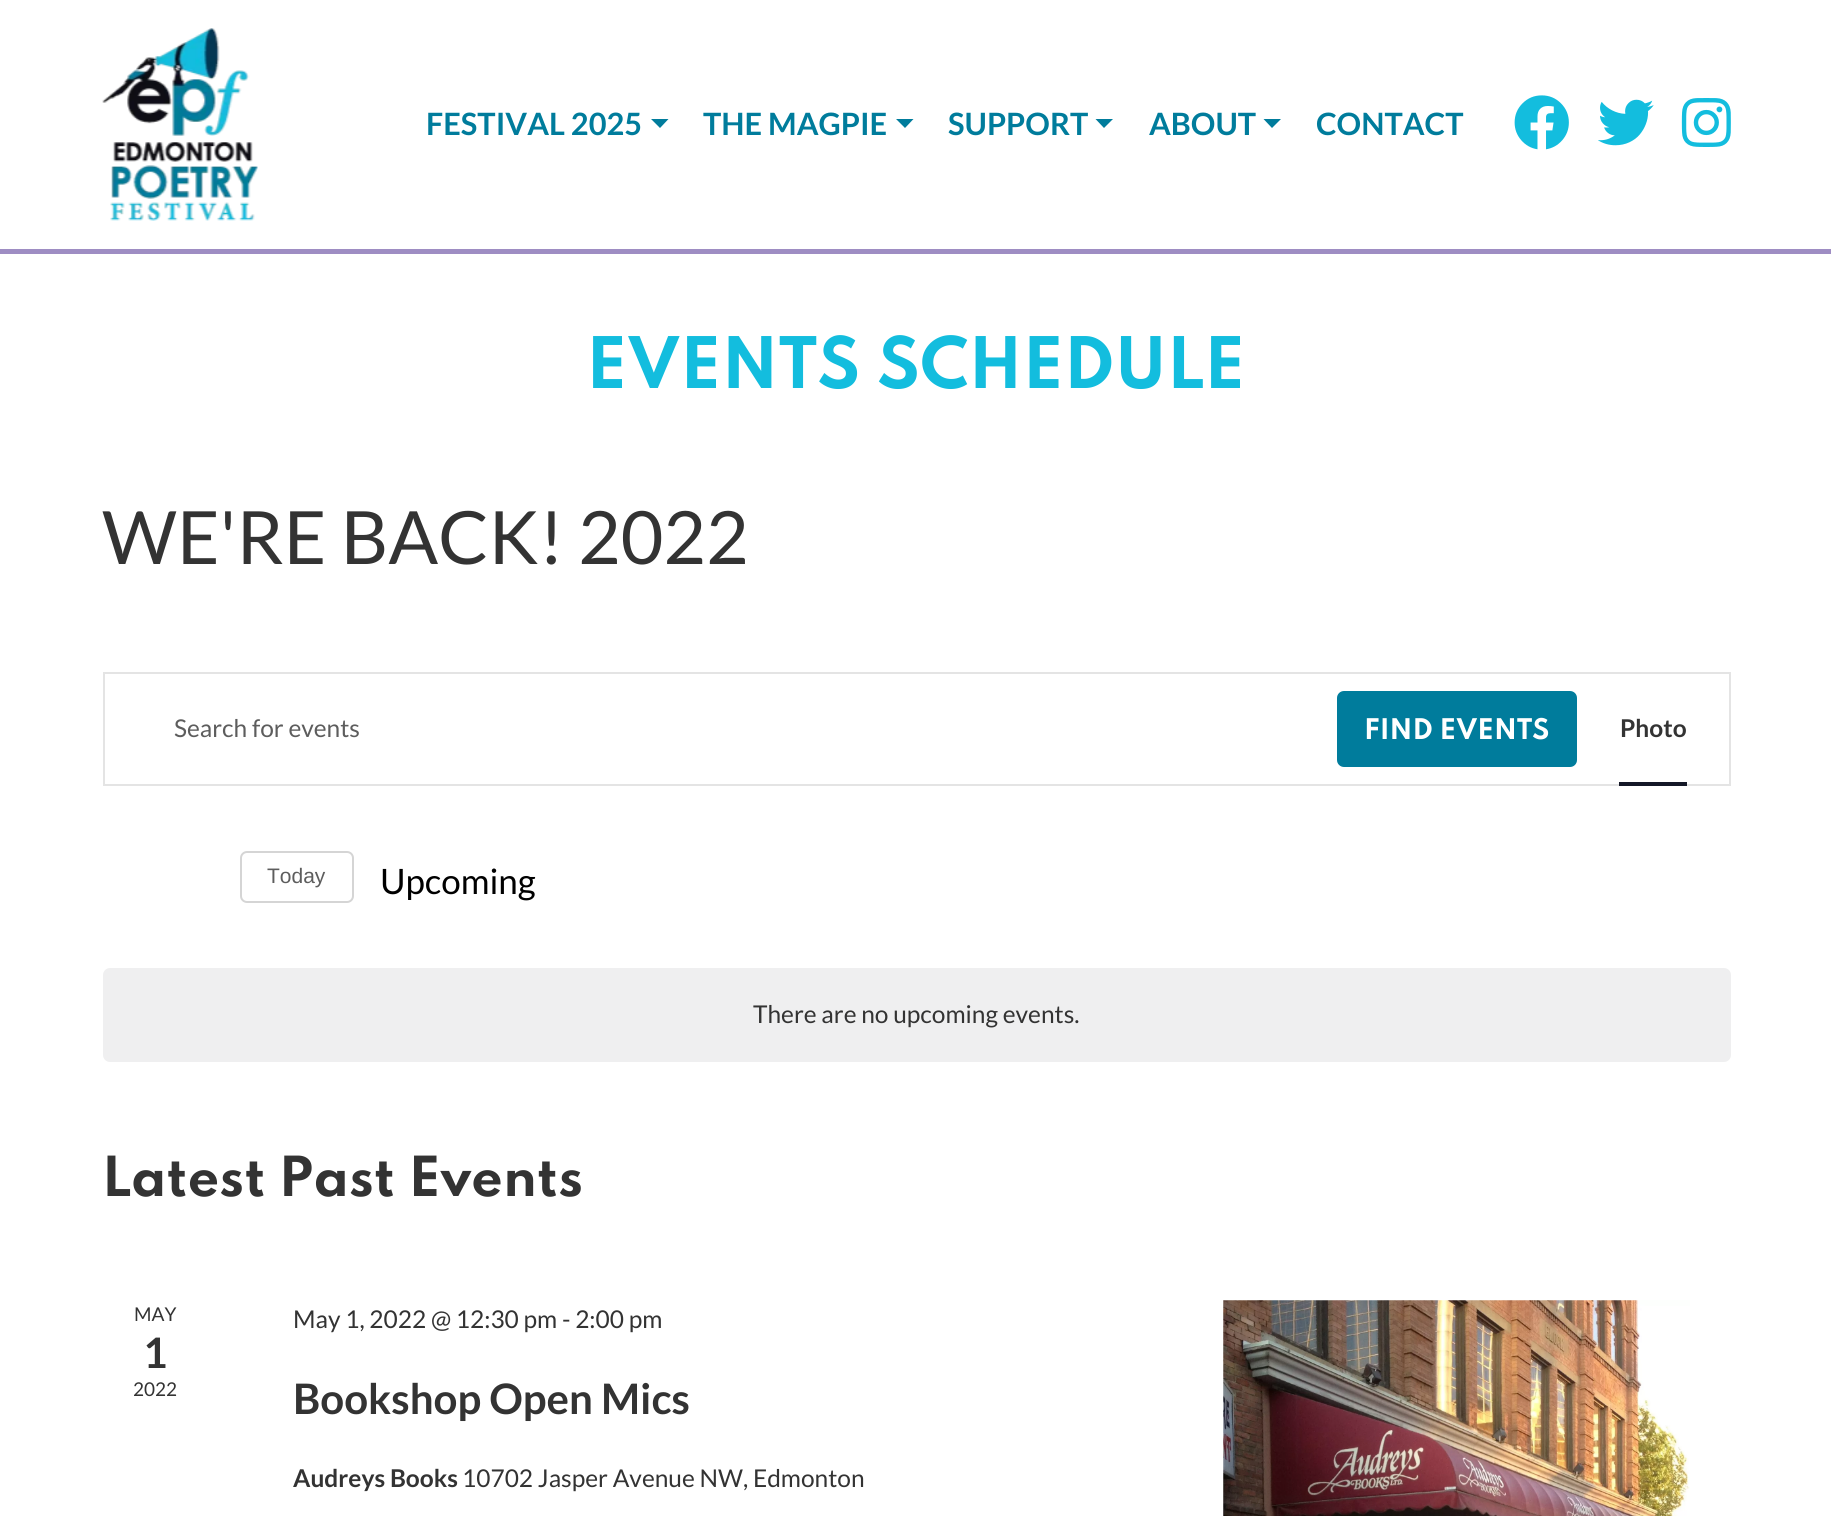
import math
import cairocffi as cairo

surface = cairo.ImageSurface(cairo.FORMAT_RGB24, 1831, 1516)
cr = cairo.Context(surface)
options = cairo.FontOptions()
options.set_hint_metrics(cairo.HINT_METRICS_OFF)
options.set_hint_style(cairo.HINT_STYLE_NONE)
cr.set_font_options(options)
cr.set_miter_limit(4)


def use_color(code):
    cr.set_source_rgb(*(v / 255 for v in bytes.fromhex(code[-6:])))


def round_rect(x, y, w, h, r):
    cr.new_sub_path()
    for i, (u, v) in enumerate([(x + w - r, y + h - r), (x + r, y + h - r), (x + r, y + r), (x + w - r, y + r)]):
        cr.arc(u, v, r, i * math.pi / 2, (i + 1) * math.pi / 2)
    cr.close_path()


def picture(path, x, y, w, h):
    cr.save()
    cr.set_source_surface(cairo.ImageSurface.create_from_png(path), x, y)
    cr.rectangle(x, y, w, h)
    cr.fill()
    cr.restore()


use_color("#ffffff")
cr.paint()
picture("img1.png", 102, 28, 156, 193)
cr.select_font_face("Lato", cairo.FONT_SLANT_NORMAL, cairo.FONT_WEIGHT_BOLD)
cr.set_font_size(30.75)
use_color("#007c9c")
cr.move_to(426, 135)
cr.show_text("FESTIVAL 2025")
cr.new_path()
cr.move_to(651, 119)
cr.line_to(668.5, 119)
cr.line_to(660, 128)
cr.close_path()
cr.fill()
cr.move_to(703, 135)
cr.show_text("THE MAGPIE")
cr.new_path()
cr.move_to(896, 119)
cr.line_to(913.5, 119)
cr.line_to(905, 128)
cr.close_path()
cr.fill()
cr.move_to(948, 135)
cr.show_text("SUPPORT")
cr.new_path()
cr.move_to(1095.5, 119)
cr.line_to(1113, 119)
cr.line_to(1104, 128)
cr.close_path()
cr.fill()
cr.move_to(1149, 135)
cr.show_text("ABOUT")
cr.new_path()
cr.move_to(1263.5, 119)
cr.line_to(1281, 119)
cr.line_to(1272, 128)
cr.close_path()
cr.fill()
cr.move_to(1316, 135)
cr.show_text("CONTACT")
picture("img2.png", 1514, 95, 55, 55)
picture("img3.png", 1598, 99, 56, 47)
picture("img4.png", 1681, 98, 50, 49)
use_color("#9e8dc3")
cr.rectangle(0, 249, 1831, 5)
cr.fill()
cr.select_font_face("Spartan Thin", cairo.FONT_SLANT_NORMAL, cairo.FONT_WEIGHT_BOLD)
cr.set_font_size(63)
use_color("#13bdde")
cr.move_to(586, 388)
cr.show_text("EVENTS SCHEDULE")
cr.select_font_face("Lato")
cr.set_font_size(73.5)
use_color("#333333")
cr.move_to(102, 564)
cr.show_text("WE'RE BACK! 2022")
cr.rectangle(104, 673, 1626, 112)
use_color("#e4e4e4")
cr.stroke()
cr.set_font_size(24.5)
use_color("#5d5d5d")
cr.move_to(174, 737)
cr.show_text("Search for events")
use_color("#007c9c")
round_rect(1337, 691, 240, 76, 7)
cr.fill()
cr.select_font_face("Spartan Thin", cairo.FONT_SLANT_NORMAL, cairo.FONT_WEIGHT_BOLD)
cr.set_font_size(25.25)
use_color("#ffffff")
cr.move_to(1364, 739)
cr.show_text("FIND EVENTS")
cr.select_font_face("Lato", cairo.FONT_SLANT_NORMAL, cairo.FONT_WEIGHT_BOLD)
cr.set_font_size(24.5)
use_color("#333333")
cr.move_to(1620, 737)
cr.show_text("Photo")
use_color("#141827")
cr.rectangle(1619, 782, 68, 4)
cr.fill()
round_rect(241, 852, 112, 50, 6)
use_color("#d5d5d5")
cr.stroke()
cr.select_font_face("Liberation Sans")
cr.set_font_size(21)
use_color("#5d5d5d")
cr.move_to(267, 883)
cr.show_text("Today")
cr.select_font_face("Lato")
cr.set_font_size(35)
use_color("#000000")
cr.move_to(380, 894)
cr.show_text("Upcoming")
use_color("#efeff0")
round_rect(103, 968, 1628, 94, 7)
cr.fill()
cr.set_font_size(24.5)
use_color("#333333")
cr.move_to(753, 1023)
cr.show_text("There are no upcoming events.")
cr.select_font_face("Spartan Thin", cairo.FONT_SLANT_NORMAL, cairo.FONT_WEIGHT_BOLD)
cr.set_font_size(49)
cr.move_to(102, 1196)
cr.show_text("Latest Past Events")
cr.select_font_face("Lato")
cr.set_font_size(19)
cr.move_to(134, 1321)
cr.show_text("MAY")
cr.select_font_face("Lato", cairo.FONT_SLANT_NORMAL, cairo.FONT_WEIGHT_BOLD)
cr.set_font_size(42)
cr.move_to(143, 1368)
cr.show_text("1")
cr.select_font_face("Lato")
cr.set_font_size(19)
cr.move_to(133, 1396)
cr.show_text("2022")
cr.set_font_size(24.5)
cr.move_to(293, 1328)
cr.show_text("May 1, 2022 @ 12:30 pm - 2:00 pm")
cr.select_font_face("Lato", cairo.FONT_SLANT_NORMAL, cairo.FONT_WEIGHT_BOLD)
cr.set_font_size(42)
cr.move_to(293, 1414)
cr.show_text("Bookshop Open Mics")
cr.set_font_size(24.5)
cr.move_to(293, 1487)
cr.show_text("Audreys Books")
cr.select_font_face("Lato")
cr.move_to(462, 1487)
cr.show_text("10702 Jasper Avenue NW, Edmonton")
picture("img5.png", 1223, 1300, 467, 216)
surface.write_to_png("result.png")
